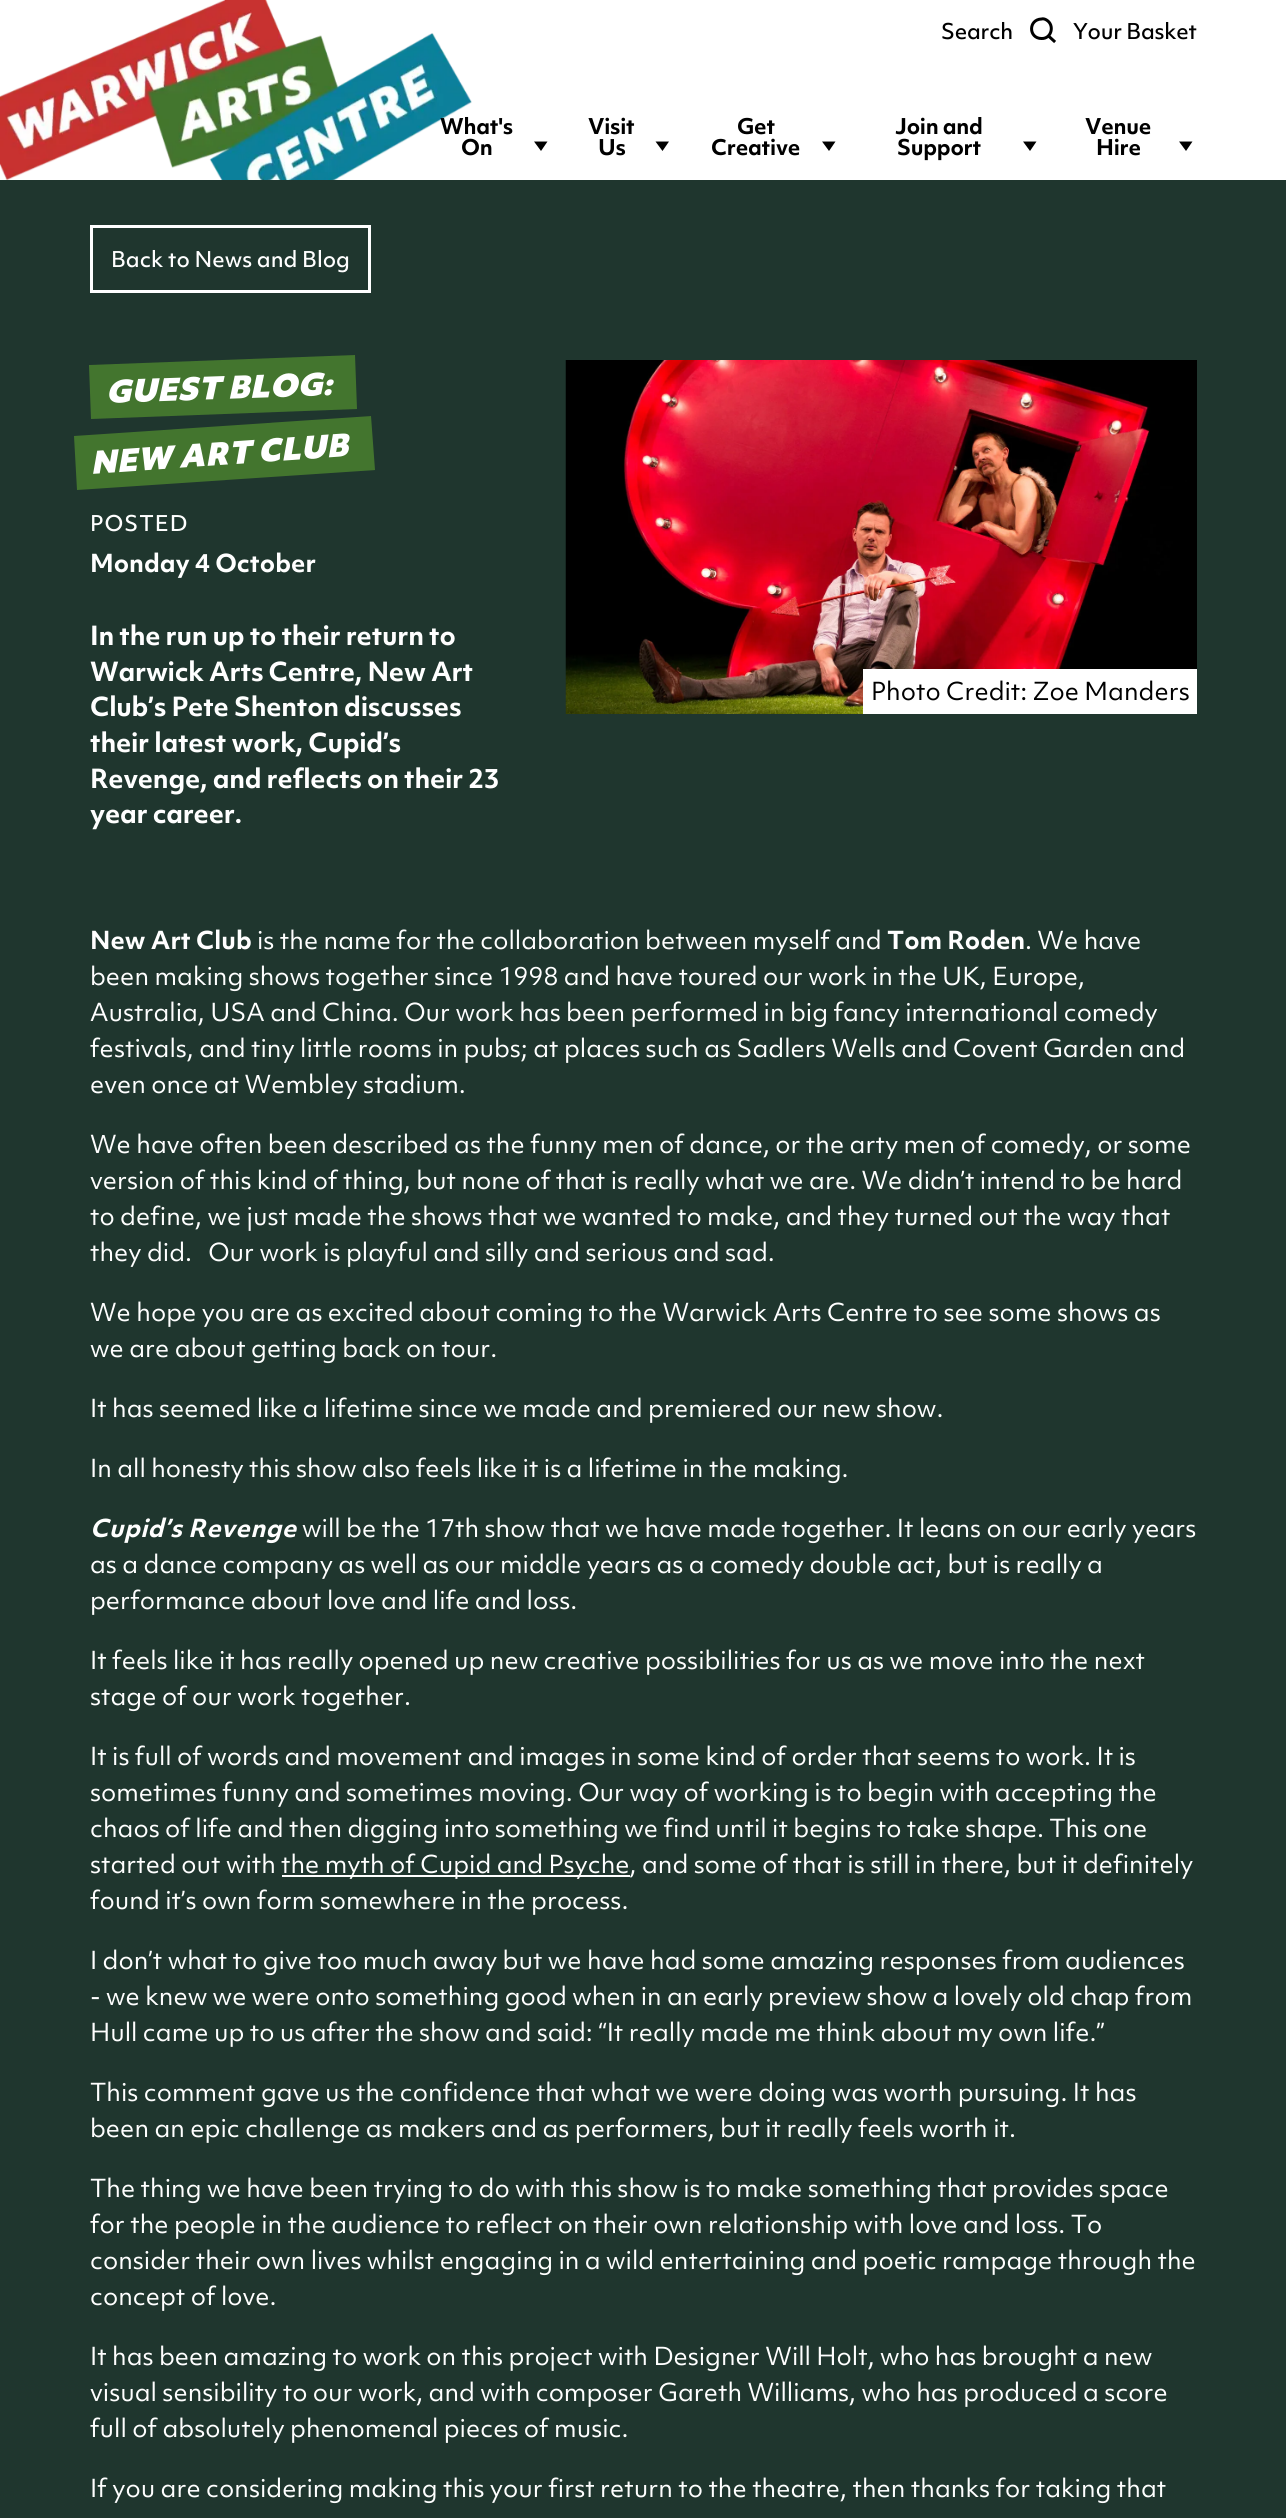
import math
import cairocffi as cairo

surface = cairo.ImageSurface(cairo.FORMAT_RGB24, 1286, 2518)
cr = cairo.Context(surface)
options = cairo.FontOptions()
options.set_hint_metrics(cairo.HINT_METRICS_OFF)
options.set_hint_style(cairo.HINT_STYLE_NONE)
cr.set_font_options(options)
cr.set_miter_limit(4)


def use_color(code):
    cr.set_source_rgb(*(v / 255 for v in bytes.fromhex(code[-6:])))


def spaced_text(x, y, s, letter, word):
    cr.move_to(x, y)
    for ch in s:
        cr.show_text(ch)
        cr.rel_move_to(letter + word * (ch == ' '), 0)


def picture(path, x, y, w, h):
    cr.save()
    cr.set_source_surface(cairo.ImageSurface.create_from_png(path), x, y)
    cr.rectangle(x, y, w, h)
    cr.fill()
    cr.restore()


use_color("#ffffff")
cr.paint()
picture("img1.png", 0, 0, 472, 180)
cr.select_font_face("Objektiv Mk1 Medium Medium")
cr.set_font_size(21)
use_color("#000000")
spaced_text(941, 39, "Search", -0.25, 0)
cr.new_path()
cr.move_to(1041.5, 38.5)
cr.curve_to(1051.5, 39, 1055, 25, 1046.5, 20)
cr.curve_to(1045, 19, 1043, 18.5, 1041.5, 19)
cr.curve_to(1028, 19.5, 1028.5, 38.5, 1041.5, 38.5)
cr.close_path()
cr.move_to(1054, 41)
cr.line_to(1048.5, 36)
cr.set_line_width(3)
cr.set_line_cap(cairo.LINE_CAP_SQUARE)
cr.stroke()
spaced_text(1073, 39, "Your Basket", -0.25, 0)
cr.select_font_face("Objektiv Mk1", cairo.FONT_SLANT_NORMAL, cairo.FONT_WEIGHT_BOLD)
spaced_text(440, 134, "What's", -0.25, 0)
spaced_text(461, 155, "On", -0.25, 0)
cr.new_path()
cr.move_to(534, 141.5)
cr.line_to(541, 151)
cr.line_to(547.5, 141.5)
cr.fill()
spaced_text(588, 134, "Visit", -0.25, 0)
spaced_text(598, 155, "Us", -0.25, 0)
cr.new_path()
cr.move_to(655.5, 141.5)
cr.line_to(662.5, 151)
cr.line_to(669, 141.5)
cr.fill()
spaced_text(737, 134, "Get", -0.25, 0)
spaced_text(711, 155, "Creative", -0.25, 0)
cr.new_path()
cr.move_to(822, 141.5)
cr.line_to(829, 151)
cr.line_to(835.5, 141.5)
cr.fill()
spaced_text(895, 134, "Join and", -0.25, 0)
spaced_text(897, 155, "Support", -0.25, 0)
cr.new_path()
cr.move_to(1023, 141.5)
cr.line_to(1030, 151)
cr.line_to(1036.5, 141.5)
cr.fill()
spaced_text(1085, 134, "Venue", -0.25, 0)
spaced_text(1096, 155, "Hire", -0.25, 0)
cr.new_path()
cr.move_to(1179, 141.5)
cr.line_to(1186, 151)
cr.line_to(1192.5, 141.5)
cr.fill()
use_color("#1f362e")
cr.rectangle(0, 180, 1286, 2338)
cr.fill()
cr.rectangle(91.5, 226.5, 278, 65)
use_color("#ffffff")
cr.set_line_cap(cairo.LINE_CAP_BUTT)
cr.stroke()
cr.select_font_face("Objektiv Mk1 Medium Medium")
cr.move_to(111, 267)
cr.show_text("Back to News and Blog")
use_color("#43752e")
cr.new_path()
cr.move_to(89, 365)
cr.line_to(355, 355)
cr.line_to(357, 409)
cr.line_to(91, 419)
cr.close_path()
cr.fill()
cr.select_font_face("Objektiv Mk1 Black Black", cairo.FONT_SLANT_ITALIC)
cr.set_font_size(30)
use_color("#ffffff")
cr.save()
cr.translate(106, 403)
cr.rotate(-2 * math.pi / 180)
spaced_text(0, 0, "GUEST BLOG:", 0.25, 0)
cr.restore()
use_color("#43752e")
cr.new_path()
cr.move_to(74, 436)
cr.line_to(371, 416)
cr.line_to(375, 470)
cr.line_to(77, 490)
cr.close_path()
cr.fill()
use_color("#ffffff")
cr.save()
cr.translate(91, 474)
cr.rotate(-4 * math.pi / 180)
spaced_text(0, 0, "NEW ART CLUB", 0.25, 0)
cr.restore()
cr.select_font_face("Objektiv Mk1 Medium Medium")
cr.set_font_size(21)
spaced_text(90, 531, "POSTED", 1, 0)
cr.select_font_face("Objektiv Mk1", cairo.FONT_SLANT_NORMAL, cairo.FONT_WEIGHT_BOLD)
cr.set_font_size(24)
cr.move_to(90, 572)
cr.show_text("Monday 4 October")
cr.set_font_size(25.5)
spaced_text(90, 645, "In the run up to their return to", -0.25, 0)
spaced_text(90, 681, "Warwick Arts Centre, New Art", -0.25, 0)
spaced_text(90, 716, "Club’s Pete Shenton discusses", -0.25, 0)
spaced_text(90, 752, "their latest work, Cupid’s", -0.25, 0)
spaced_text(90, 788, "Revenge, and reflects on their 23", -0.25, 0)
spaced_text(90, 823, "year career.", -0.25, 0)
picture("img2.png", 565, 360, 632, 354)
cr.rectangle(863, 669, 334, 45)
cr.fill()
cr.select_font_face("Objektiv Mk1")
cr.set_font_size(24)
use_color("#000000")
cr.move_to(871, 700)
cr.show_text("Photo Credit: Zoe Manders")
cr.select_font_face("Objektiv Mk1", cairo.FONT_SLANT_NORMAL, cairo.FONT_WEIGHT_BOLD)
use_color("#ffffff")
cr.move_to(90, 949)
cr.show_text("New Art Club")
cr.select_font_face("Objektiv Mk1")
cr.move_to(257, 949)
cr.show_text("is the name for the collaboration between myself and")
cr.select_font_face("Objektiv Mk1", cairo.FONT_SLANT_NORMAL, cairo.FONT_WEIGHT_BOLD)
cr.move_to(887, 949)
cr.show_text("Tom Roden")
cr.select_font_face("Objektiv Mk1")
cr.move_to(1025, 949)
cr.show_text(". We have")
cr.move_to(90, 985)
cr.show_text("been making shows together since 1998 and have toured our work in the UK, Europe,")
cr.move_to(90, 1021)
cr.show_text("Australia, USA and China. Our work has been performed in big fancy international comedy")
cr.move_to(90, 1057)
cr.show_text("festivals, and tiny little rooms in pubs; at places such as Sadlers Wells and Covent Garden and")
cr.move_to(90, 1093)
cr.show_text("even once at Wembley stadium.")
cr.move_to(90, 1153)
cr.show_text("We have often been described as the funny men of dance, or the arty men of comedy, or some")
cr.move_to(90, 1189)
cr.show_text("version of this kind of thing, but none of that is really what we are. We didn’t intend to be hard")
cr.move_to(90, 1225)
cr.show_text("to define, we just made the shows that we wanted to make, and they turned out the way that")
cr.move_to(90, 1261)
cr.show_text("they did.   Our work is playful and silly and serious and sad.")
cr.move_to(90, 1321)
cr.show_text("We hope you are as excited about coming to the Warwick Arts Centre to see some shows as")
cr.move_to(90, 1357)
cr.show_text("we are about getting back on tour.")
cr.move_to(90, 1417)
cr.show_text("It has seemed like a lifetime since we made and premiered our new show.")
cr.move_to(90, 1477)
cr.show_text("In all honesty this show also feels like it is a lifetime in the making.")
cr.select_font_face("Objektiv Mk1", cairo.FONT_SLANT_ITALIC, cairo.FONT_WEIGHT_BOLD)
spaced_text(90, 1537, "Cupid’s Revenge", 0.5, 0)
cr.select_font_face("Objektiv Mk1")
cr.move_to(302, 1537)
cr.show_text("will be the 17th show that we have made together. It leans on our early years")
cr.move_to(90, 1573)
cr.show_text("as a dance company as well as our middle years as a comedy double act, but is really a")
cr.move_to(90, 1609)
cr.show_text("performance about love and life and loss.")
cr.move_to(90, 1669)
cr.show_text("It feels like it has really opened up new creative possibilities for us as we move into the next")
cr.move_to(90, 1705)
cr.show_text("stage of our work together.")
cr.move_to(90, 1765)
cr.show_text("It is full of words and movement and images in some kind of order that seems to work. It is")
cr.move_to(90, 1801)
cr.show_text("sometimes funny and sometimes moving. Our way of working is to begin with accepting the")
cr.move_to(90, 1837)
cr.show_text("chaos of life and then digging into something we find until it begins to take shape. This one")
cr.move_to(90, 1873)
cr.show_text("started out with")
cr.rectangle(282, 1875, 348, 2)
cr.fill()
cr.move_to(281, 1873)
cr.show_text("the myth of Cupid and Psyche, and some of that is still in there, but it definitely")
cr.move_to(90, 1909)
cr.show_text("found it’s own form somewhere in the process.")
cr.move_to(90, 1969)
cr.show_text("I don’t what to give too much away but we have had some amazing responses from audiences")
cr.move_to(90, 2005)
cr.show_text("- we knew we were onto something good when in an early preview show a lovely old chap from")
cr.move_to(90, 2041)
cr.show_text("Hull came up to us after the show and said: “It really made me think about my own life.”")
cr.move_to(90, 2101)
cr.show_text("This comment gave us the confidence that what we were doing was worth pursuing. It has")
cr.move_to(90, 2137)
cr.show_text("been an epic challenge as makers and as performers, but it really feels worth it.")
cr.move_to(90, 2197)
cr.show_text("The thing we have been trying to do with this show is to make something that provides space")
cr.move_to(90, 2233)
cr.show_text("for the people in the audience to reflect on their own relationship with love and loss. To")
cr.move_to(90, 2269)
cr.show_text("consider their own lives whilst engaging in a wild entertaining and poetic rampage through the")
cr.move_to(90, 2305)
cr.show_text("concept of love.")
cr.move_to(90, 2365)
cr.show_text("It has been amazing to work on this project with Designer Will Holt, who has brought a new")
cr.move_to(90, 2401)
cr.show_text("visual sensibility to our work, and with composer Gareth Williams, who has produced a score")
cr.move_to(90, 2437)
cr.show_text("full of absolutely phenomenal pieces of music.")
cr.move_to(90, 2497)
cr.show_text("If you are considering making this your first return to the theatre, then thanks for taking that")
surface.write_to_png("result.png")
